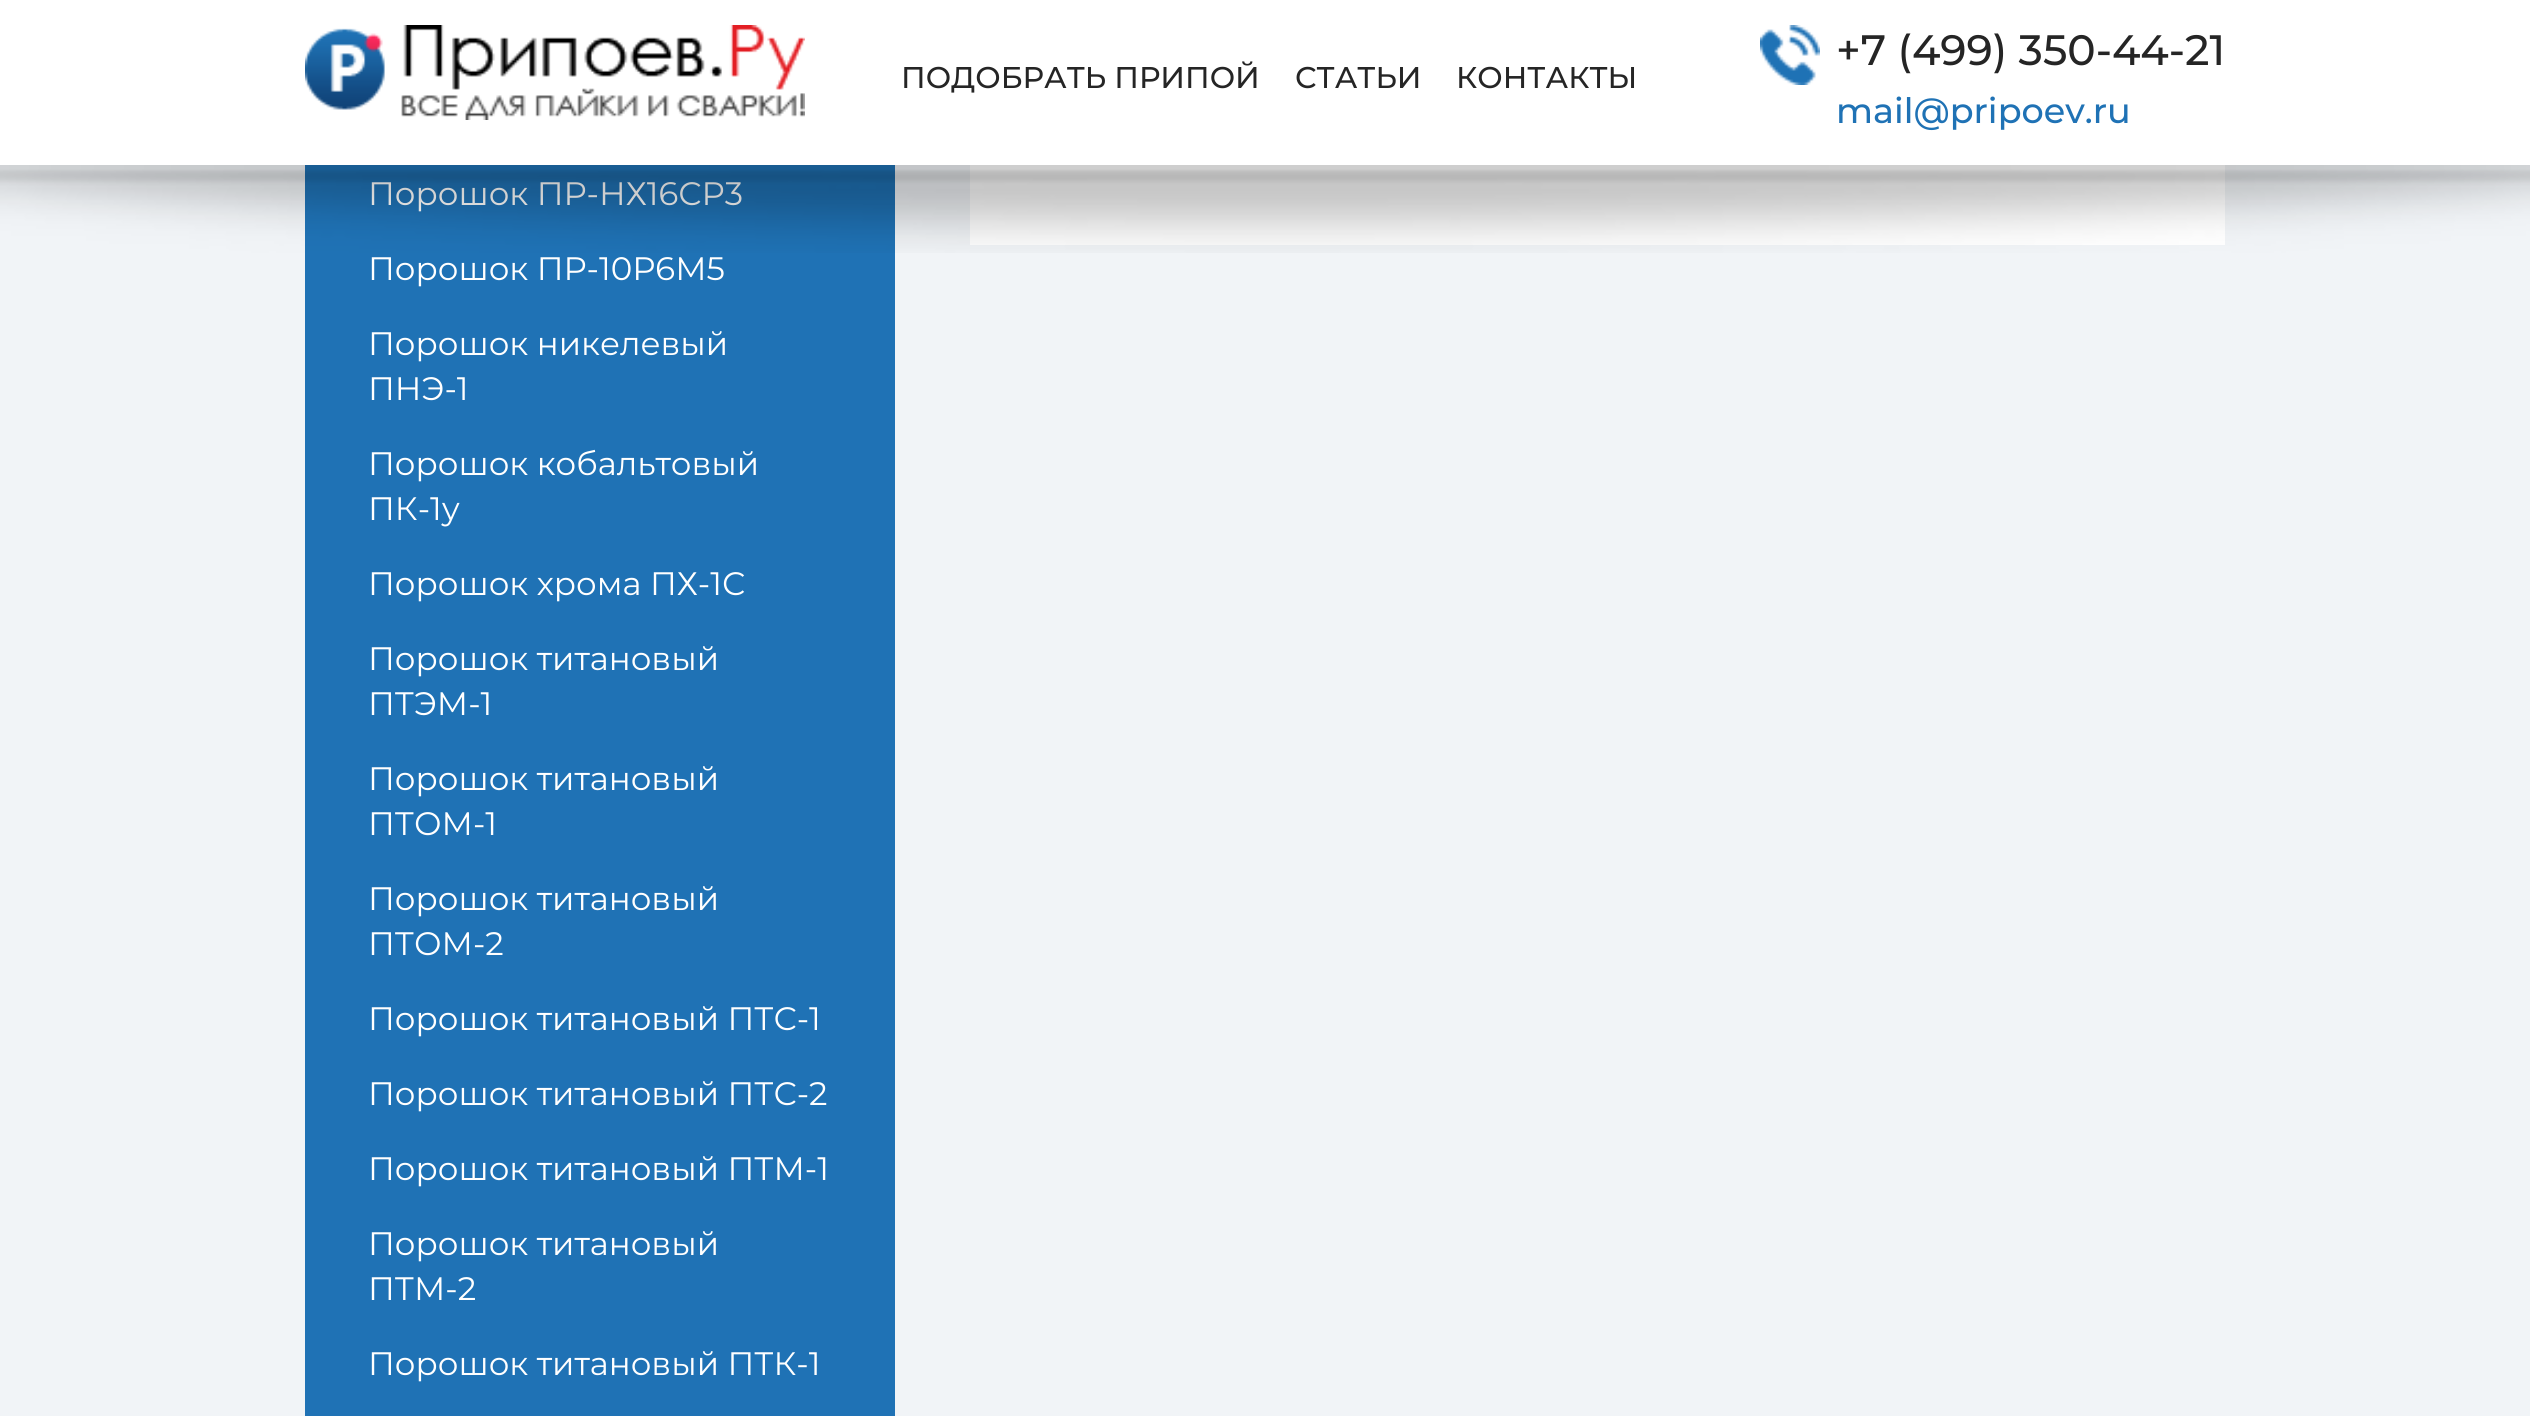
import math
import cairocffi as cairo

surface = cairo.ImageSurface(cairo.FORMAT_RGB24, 2530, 1416)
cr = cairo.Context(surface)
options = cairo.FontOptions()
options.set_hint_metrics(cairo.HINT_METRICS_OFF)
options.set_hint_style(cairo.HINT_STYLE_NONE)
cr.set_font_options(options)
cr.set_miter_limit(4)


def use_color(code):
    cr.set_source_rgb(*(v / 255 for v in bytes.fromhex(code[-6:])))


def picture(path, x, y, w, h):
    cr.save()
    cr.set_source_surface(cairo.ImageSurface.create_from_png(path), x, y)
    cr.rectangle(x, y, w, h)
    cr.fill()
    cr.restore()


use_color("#f1f4f7")
cr.paint()
use_color("#ffffff")
cr.rectangle(0, 0, 2530, 165)
cr.fill()
picture("img1.png", 305, 25, 500, 95)
cr.select_font_face("Montserrat Medium")
cr.set_font_size(30)
use_color("#252525")
cr.move_to(901, 88)
cr.show_text("ПОДОБРАТЬ ПРИПОЙ")
cr.move_to(1295, 88)
cr.show_text("СТАТЬИ")
cr.move_to(1456, 88)
cr.show_text("КОНТАКТЫ")
picture("img2.png", 1760, 25, 60, 60)
cr.set_font_size(42.5)
cr.move_to(1836, 65)
cr.show_text("+7 (499) 350-44-21")
cr.set_font_size(35)
use_color("#1f72b5")
cr.move_to(1836, 123)
cr.show_text("mail@pripoev.ru")
cr.rectangle(305, 165, 590, 1251)
cr.fill()
cr.select_font_face("Montserrat")
cr.set_font_size(32.5)
use_color("#ffffff")
cr.move_to(368, 205)
cr.show_text("Порошок ПР-НХ16СР3")
cr.rectangle(970, 165, 1255, 80)
cr.fill()
picture("img3.png", 0, 165, 2530, 88)
cr.move_to(368, 280)
cr.show_text("Порошок ПР-10Р6М5")
cr.move_to(368, 355)
cr.show_text("Порошок никелевый")
cr.move_to(368, 400)
cr.show_text("ПНЭ-1")
cr.move_to(368, 475)
cr.show_text("Порошок кобальтовый")
cr.move_to(368, 520)
cr.show_text("ПК-1у")
cr.move_to(368, 595)
cr.show_text("Порошок хрома ПХ-1С")
cr.move_to(368, 670)
cr.show_text("Порошок титановый")
cr.move_to(368, 715)
cr.show_text("ПТЭМ-1")
cr.move_to(368, 790)
cr.show_text("Порошок титановый")
cr.move_to(368, 835)
cr.show_text("ПТОМ-1")
cr.move_to(368, 910)
cr.show_text("Порошок титановый")
cr.move_to(368, 955)
cr.show_text("ПТОМ-2")
cr.move_to(368, 1030)
cr.show_text("Порошок титановый ПТС-1")
cr.move_to(368, 1105)
cr.show_text("Порошок титановый ПТС-2")
cr.move_to(368, 1180)
cr.show_text("Порошок титановый ПТМ-1")
cr.move_to(368, 1255)
cr.show_text("Порошок титановый")
cr.move_to(368, 1300)
cr.show_text("ПТМ-2")
cr.move_to(368, 1375)
cr.show_text("Порошок титановый ПТК-1")
surface.write_to_png("result.png")
